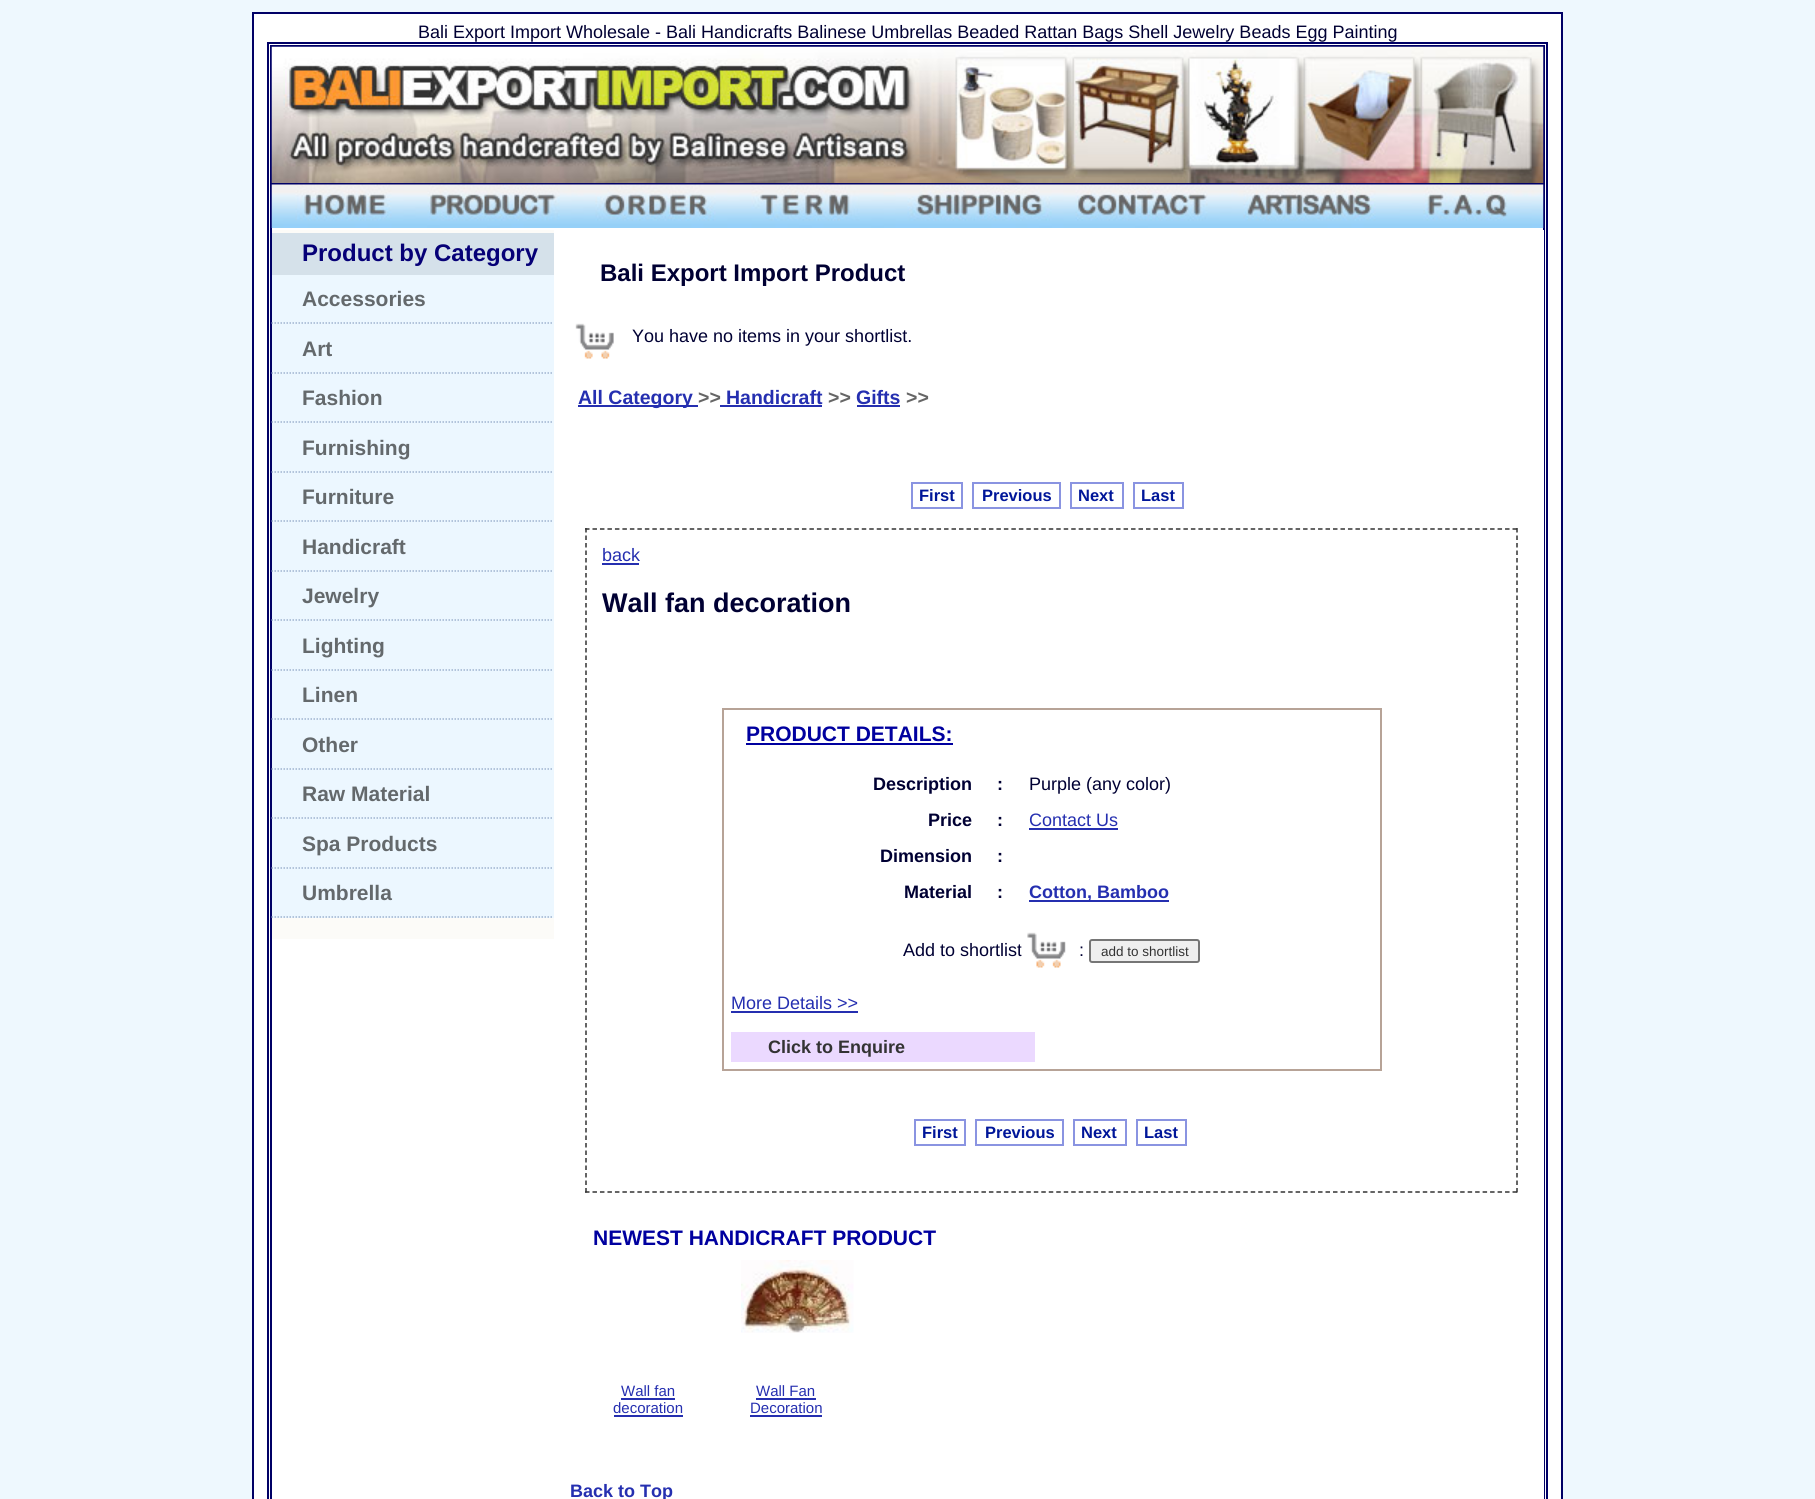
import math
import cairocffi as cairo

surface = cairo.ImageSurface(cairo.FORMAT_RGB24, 1815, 1499)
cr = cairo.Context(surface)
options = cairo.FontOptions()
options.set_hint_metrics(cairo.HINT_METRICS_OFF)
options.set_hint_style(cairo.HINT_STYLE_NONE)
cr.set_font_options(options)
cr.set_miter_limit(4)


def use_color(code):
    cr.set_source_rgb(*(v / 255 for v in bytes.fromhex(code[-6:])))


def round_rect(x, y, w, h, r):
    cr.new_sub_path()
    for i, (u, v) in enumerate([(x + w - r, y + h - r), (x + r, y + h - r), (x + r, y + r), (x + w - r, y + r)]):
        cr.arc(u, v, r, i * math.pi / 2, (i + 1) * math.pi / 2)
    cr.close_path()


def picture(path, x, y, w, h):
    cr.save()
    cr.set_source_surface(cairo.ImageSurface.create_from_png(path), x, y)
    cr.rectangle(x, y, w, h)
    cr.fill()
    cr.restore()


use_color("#eef8fe")
cr.paint()
use_color("#ffffff")
cr.rectangle(253, 13, 1309, 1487)
cr.fill_preserve()
use_color("#000066")
cr.stroke()
cr.select_font_face("Liberation Sans")
cr.set_font_size(18)
use_color("#000033")
cr.move_to(418, 38)
cr.show_text("Bali Export Import Wholesale - Bali Handicrafts Balinese Umbrellas Beaded Rattan Bags Shell Jewelry Beads Egg Painting")
cr.rectangle(268, 43, 1279, 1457)
use_color("#000066")
cr.stroke()
cr.rectangle(271, 46, 1273, 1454)
cr.stroke()
picture("img1.png", 271, 46, 1273, 137)
cr.rectangle(272, 183, 1272, 2)
cr.fill()
picture("img2.png", 271, 184, 1273, 44)
use_color("#fcfbf8")
cr.rectangle(272, 230, 282, 709)
cr.fill()
use_color("#d5e1ea")
cr.rectangle(272, 233, 282, 42)
cr.fill()
cr.select_font_face("Liberation Sans", cairo.FONT_SLANT_NORMAL, cairo.FONT_WEIGHT_BOLD)
cr.set_font_size(24)
use_color("#060077")
cr.move_to(302, 261)
cr.show_text("Product by Category")
use_color("#ecf7ff")
cr.rectangle(272, 275, 282, 643)
cr.fill()
cr.new_path()
cr.move_to(271.5, 323)
cr.line_to(553.5, 323)
use_color("#a0b3cf")
cr.set_line_width(1.5)
cr.set_dash([1.5, 1.5])
cr.stroke()
cr.set_font_size(21)
use_color("#64696c")
cr.move_to(302, 306)
cr.show_text("Accessories")
cr.new_path()
cr.move_to(271.5, 373)
cr.line_to(553.5, 373)
use_color("#a0b3cf")
cr.stroke()
use_color("#64696c")
cr.move_to(302, 356)
cr.show_text("Art")
cr.new_path()
cr.move_to(271.5, 422)
cr.line_to(553.5, 422)
use_color("#a0b3cf")
cr.stroke()
use_color("#64696c")
cr.move_to(302, 405)
cr.show_text("Fashion")
cr.new_path()
cr.move_to(271.5, 472)
cr.line_to(553.5, 472)
use_color("#a0b3cf")
cr.stroke()
use_color("#64696c")
cr.move_to(302, 455)
cr.show_text("Furnishing")
cr.new_path()
cr.move_to(271.5, 521)
cr.line_to(553.5, 521)
use_color("#a0b3cf")
cr.stroke()
use_color("#64696c")
cr.move_to(302, 504)
cr.show_text("Furniture")
cr.new_path()
cr.move_to(271.5, 571)
cr.line_to(553.5, 571)
use_color("#a0b3cf")
cr.stroke()
use_color("#64696c")
cr.move_to(302, 554)
cr.show_text("Handicraft")
cr.new_path()
cr.move_to(271.5, 620)
cr.line_to(553.5, 620)
use_color("#a0b3cf")
cr.stroke()
use_color("#64696c")
cr.move_to(302, 603)
cr.show_text("Jewelry")
cr.new_path()
cr.move_to(271.5, 670)
cr.line_to(553.5, 670)
use_color("#a0b3cf")
cr.stroke()
use_color("#64696c")
cr.move_to(302, 653)
cr.show_text("Lighting")
cr.new_path()
cr.move_to(271.5, 719)
cr.line_to(553.5, 719)
use_color("#a0b3cf")
cr.stroke()
use_color("#64696c")
cr.move_to(302, 702)
cr.show_text("Linen")
cr.new_path()
cr.move_to(271.5, 769)
cr.line_to(553.5, 769)
use_color("#a0b3cf")
cr.stroke()
use_color("#64696c")
cr.move_to(302, 752)
cr.show_text("Other")
cr.new_path()
cr.move_to(271.5, 818)
cr.line_to(553.5, 818)
use_color("#a0b3cf")
cr.stroke()
use_color("#64696c")
cr.move_to(302, 801)
cr.show_text("Raw Material")
cr.new_path()
cr.move_to(271.5, 868)
cr.line_to(553.5, 868)
use_color("#a0b3cf")
cr.stroke()
use_color("#64696c")
cr.move_to(302, 851)
cr.show_text("Spa Products")
cr.new_path()
cr.move_to(271.5, 917)
cr.line_to(553.5, 917)
use_color("#a0b3cf")
cr.stroke()
use_color("#64696c")
cr.move_to(302, 900)
cr.show_text("Umbrella")
use_color("#ffffff")
cr.rectangle(1543, 230, 1, 1269)
cr.fill()
cr.set_font_size(24)
use_color("#000033")
cr.move_to(600, 281)
cr.show_text("Bali Export Import Product")
picture("img3.png", 575, 323, 39, 36)
cr.select_font_face("Liberation Sans")
cr.set_font_size(18)
cr.move_to(632, 342)
cr.show_text("You have no items in your shortlist.")
use_color("#252fb0")
cr.rectangle(578, 405, 120, 2)
cr.fill()
cr.select_font_face("Liberation Sans", cairo.FONT_SLANT_NORMAL, cairo.FONT_WEIGHT_BOLD)
cr.set_font_size(19.5)
cr.move_to(578, 404)
cr.show_text("All Category")
use_color("#666666")
cr.move_to(698, 404)
cr.show_text(">>")
use_color("#252fb0")
cr.move_to(726, 404)
cr.show_text("Handicraft")
cr.rectangle(720, 405, 102, 2)
cr.fill()
use_color("#666666")
cr.move_to(828, 404)
cr.show_text(">>")
use_color("#252fb0")
cr.move_to(856, 404)
cr.show_text("Gifts")
cr.rectangle(857, 405, 43, 2)
cr.fill()
use_color("#666666")
cr.move_to(906, 404)
cr.show_text(">>")
cr.rectangle(912, 483, 50, 25)
use_color("#8a94e1")
cr.set_line_width(2)
cr.set_dash([])
cr.stroke()
cr.set_font_size(16.5)
use_color("#001699")
cr.move_to(919, 501)
cr.show_text("First")
cr.rectangle(973, 483, 87, 25)
use_color("#8a94e1")
cr.stroke()
use_color("#001699")
cr.move_to(982, 501)
cr.show_text("Previous")
cr.rectangle(1071, 483, 52, 25)
use_color("#8a94e1")
cr.stroke()
use_color("#001699")
cr.move_to(1078, 501)
cr.show_text("Next")
cr.rectangle(1134, 483, 49, 25)
use_color("#8a94e1")
cr.stroke()
use_color("#001699")
cr.move_to(1141, 501)
cr.show_text("Last")
cr.new_path()
cr.move_to(585, 529)
cr.line_to(1518, 529)
use_color("#333333")
cr.set_line_width(1.5)
cr.set_dash([4.5, 2.98])
cr.stroke()
cr.new_path()
cr.move_to(1517, 528)
cr.line_to(1517, 1192.5)
cr.set_dash([4.5, 3])
cr.stroke()
cr.new_path()
cr.move_to(585, 1192)
cr.line_to(1518, 1192)
cr.set_dash([4.5, 2.98])
cr.stroke()
cr.new_path()
cr.move_to(586, 528)
cr.line_to(586, 1192.5)
cr.set_dash([4.5, 3])
cr.stroke()
cr.select_font_face("Liberation Sans")
cr.set_font_size(18)
use_color("#252fb0")
cr.move_to(602, 561)
cr.show_text("back")
cr.rectangle(602, 563, 37, 2)
cr.fill()
cr.select_font_face("Liberation Sans", cairo.FONT_SLANT_NORMAL, cairo.FONT_WEIGHT_BOLD)
cr.set_font_size(27)
use_color("#000033")
cr.move_to(602, 612)
cr.show_text("Wall fan decoration")
cr.rectangle(723, 709, 658, 361)
use_color("#b7a397")
cr.set_line_width(2)
cr.set_dash([])
cr.stroke()
cr.set_font_size(21)
use_color("#00009f")
cr.move_to(746, 741)
cr.show_text("PRODUCT DETAILS:")
cr.rectangle(746, 743, 207, 2)
cr.fill()
cr.set_font_size(18)
use_color("#000033")
cr.move_to(873, 790)
cr.show_text("Description")
cr.move_to(997, 790)
cr.show_text(":")
cr.select_font_face("Liberation Sans")
cr.move_to(1029, 790)
cr.show_text("Purple (any color)")
cr.select_font_face("Liberation Sans", cairo.FONT_SLANT_NORMAL, cairo.FONT_WEIGHT_BOLD)
cr.move_to(928, 826)
cr.show_text("Price")
cr.move_to(997, 826)
cr.show_text(":")
cr.select_font_face("Liberation Sans")
use_color("#252fb0")
cr.move_to(1029, 826)
cr.show_text("Contact Us")
cr.rectangle(1029, 828, 89, 2)
cr.fill()
cr.select_font_face("Liberation Sans", cairo.FONT_SLANT_NORMAL, cairo.FONT_WEIGHT_BOLD)
use_color("#000033")
cr.move_to(880, 862)
cr.show_text("Dimension")
cr.move_to(997, 862)
cr.show_text(":")
cr.move_to(904, 898)
cr.show_text("Material")
cr.move_to(997, 898)
cr.show_text(":")
use_color("#252fb0")
cr.rectangle(1029, 900, 140, 2)
cr.fill()
cr.move_to(1029, 898)
cr.show_text("Cotton, Bamboo")
cr.select_font_face("Liberation Sans")
use_color("#000033")
cr.move_to(903, 956)
cr.show_text("Add to shortlist")
picture("img4.png", 1021, 932, 45, 36)
cr.move_to(1079, 956)
cr.show_text(":")
use_color("#efefef")
round_rect(1090, 940, 109, 22, 2)
cr.fill_preserve()
use_color("#767676")
cr.stroke()
cr.set_font_size(13.5)
use_color("#333333")
cr.move_to(1101, 956)
cr.show_text("add to shortlist")
cr.set_font_size(18)
use_color("#252fb0")
cr.move_to(731, 1009)
cr.show_text("More Details >>")
cr.rectangle(731, 1011, 127, 2)
cr.fill()
use_color("#ebd9ff")
cr.rectangle(731, 1032, 304, 30)
cr.fill()
cr.select_font_face("Liberation Sans", cairo.FONT_SLANT_NORMAL, cairo.FONT_WEIGHT_BOLD)
use_color("#333333")
cr.move_to(768, 1053)
cr.show_text("Click to Enquire")
cr.rectangle(915, 1120, 50, 25)
use_color("#8a94e1")
cr.stroke()
cr.set_font_size(16.5)
use_color("#001699")
cr.move_to(922, 1138)
cr.show_text("First")
cr.rectangle(976, 1120, 87, 25)
use_color("#8a94e1")
cr.stroke()
use_color("#001699")
cr.move_to(985, 1138)
cr.show_text("Previous")
cr.rectangle(1074, 1120, 52, 25)
use_color("#8a94e1")
cr.stroke()
use_color("#001699")
cr.move_to(1081, 1138)
cr.show_text("Next")
cr.rectangle(1137, 1120, 49, 25)
use_color("#8a94e1")
cr.stroke()
use_color("#001699")
cr.move_to(1144, 1138)
cr.show_text("Last")
cr.set_font_size(21)
use_color("#00009f")
cr.move_to(593, 1245)
cr.show_text("NEWEST HANDICRAFT PRODUCT")
cr.select_font_face("Liberation Sans")
cr.set_font_size(15)
use_color("#252fb0")
cr.move_to(621, 1396)
cr.show_text("Wall fan")
cr.rectangle(621, 1398, 54, 2)
cr.fill()
cr.move_to(613, 1413)
cr.show_text("decoration")
cr.rectangle(614, 1415, 69, 2)
cr.fill()
picture("img5.png", 741, 1260, 113, 73)
cr.move_to(756, 1396)
cr.show_text("Wall Fan")
cr.rectangle(756, 1398, 60, 2)
cr.fill()
cr.move_to(750, 1413)
cr.show_text("Decoration")
cr.rectangle(750, 1415, 72, 2)
cr.fill()
cr.select_font_face("Liberation Sans", cairo.FONT_SLANT_NORMAL, cairo.FONT_WEIGHT_BOLD)
cr.set_font_size(18)
cr.move_to(570, 1497)
cr.show_text("Back to Top")
surface.write_to_png("result.png")
